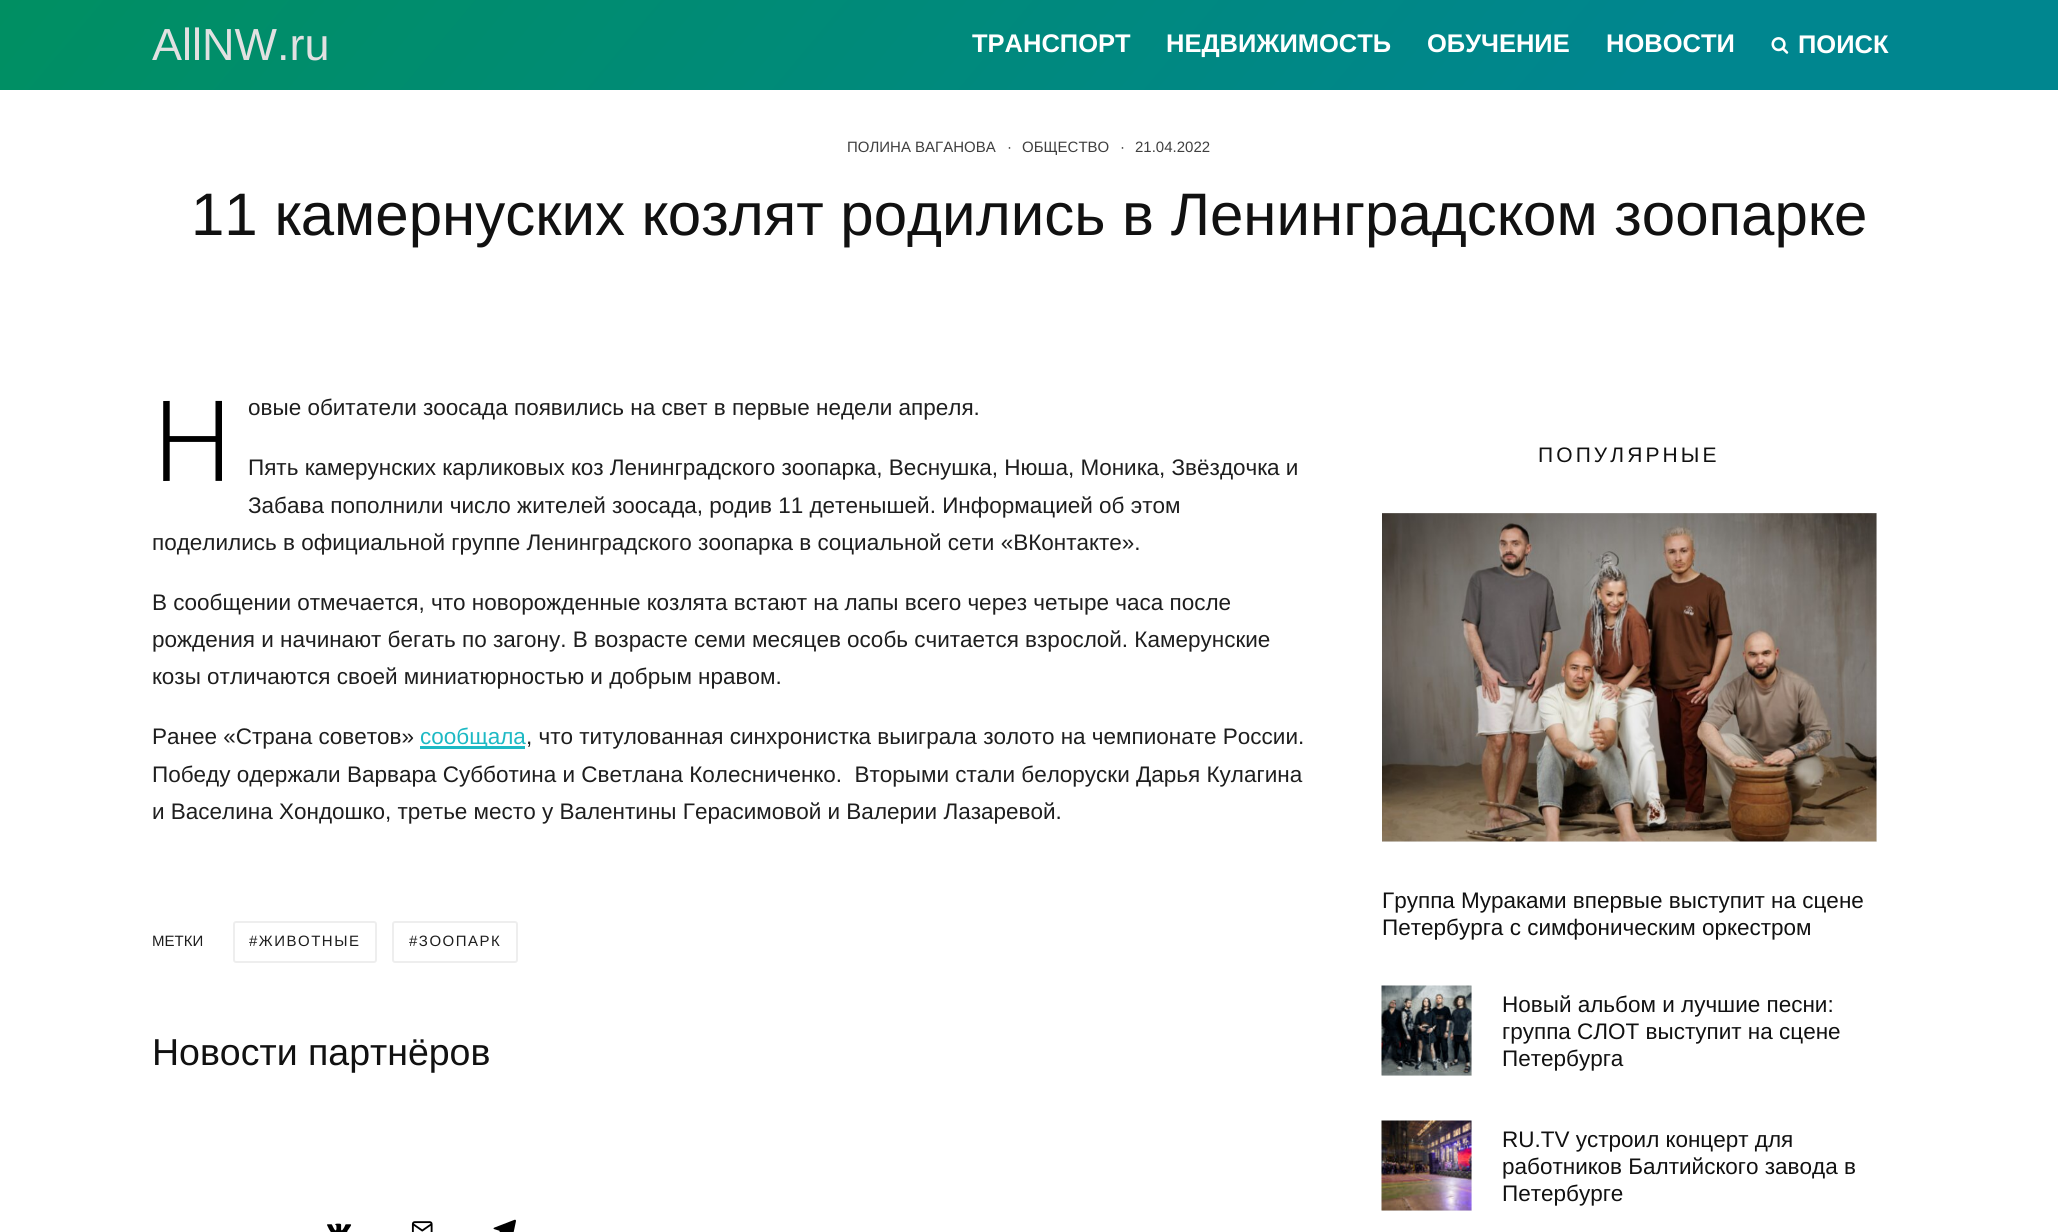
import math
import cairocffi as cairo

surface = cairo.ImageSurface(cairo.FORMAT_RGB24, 2058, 1232)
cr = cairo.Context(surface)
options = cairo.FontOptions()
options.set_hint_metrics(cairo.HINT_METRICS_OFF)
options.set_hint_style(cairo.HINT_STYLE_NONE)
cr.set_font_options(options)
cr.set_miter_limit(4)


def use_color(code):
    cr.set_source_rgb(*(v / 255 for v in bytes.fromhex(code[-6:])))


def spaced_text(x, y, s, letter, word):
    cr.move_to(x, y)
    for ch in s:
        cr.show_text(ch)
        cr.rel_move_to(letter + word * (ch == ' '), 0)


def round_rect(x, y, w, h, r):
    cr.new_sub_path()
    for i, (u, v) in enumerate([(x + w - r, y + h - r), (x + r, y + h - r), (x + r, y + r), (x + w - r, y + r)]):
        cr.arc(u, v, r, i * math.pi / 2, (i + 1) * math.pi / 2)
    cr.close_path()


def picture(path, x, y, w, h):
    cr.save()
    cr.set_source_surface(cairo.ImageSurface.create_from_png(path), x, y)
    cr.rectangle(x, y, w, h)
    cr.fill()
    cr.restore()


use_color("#ffffff")
cr.paint()
gradient = cairo.LinearGradient(403, -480, 1655, 570)
gradient.add_color_stop_rgba(0, 0, 0.561, 0.384, 1)
gradient.add_color_stop_rgba(0.8, 0, 0.525, 0.561, 1)
cr.set_source(gradient)
cr.rectangle(0, 0, 2058, 90)
cr.fill()
cr.select_font_face("Liberation Sans")
cr.set_font_size(45)
use_color("#e1e1e1")
cr.move_to(152, 60)
cr.show_text("АllNW.ru")
cr.select_font_face("Liberation Sans", cairo.FONT_SLANT_NORMAL, cairo.FONT_WEIGHT_BOLD)
cr.set_font_size(25.5)
use_color("#ffffff")
cr.move_to(972, 52)
cr.show_text("ТРАНСПОРТ")
cr.move_to(1166, 52)
cr.show_text("НЕДВИЖИМОСТЬ")
cr.move_to(1427, 52)
cr.show_text("ОБУЧЕНИЕ")
cr.move_to(1606, 52)
cr.show_text("НОВОСТИ")
picture("img1.png", 1771, 37, 18, 17)
cr.move_to(1798, 53)
cr.show_text("ПОИСК")
cr.select_font_face("Liberation Sans")
cr.set_font_size(15)
use_color("#3f3f3f")
cr.move_to(847, 152)
cr.show_text("ПОЛИНА ВАГАНОВА")
cr.move_to(1007, 152)
cr.show_text("·")
cr.move_to(1022, 152)
cr.show_text("ОБЩЕСТВО")
cr.move_to(1120, 152)
cr.show_text("·")
cr.move_to(1135, 152)
cr.show_text("21.04.2022")
cr.set_font_size(60)
use_color("#111111")
cr.move_to(191, 235)
cr.show_text("11 камернуских козлят родились в Ленинградском зоопарке")
cr.select_font_face("Noto Sans Light")
cr.set_font_size(112)
use_color("#000000")
cr.move_to(152, 481)
cr.show_text("Н")
cr.select_font_face("Liberation Sans")
cr.set_font_size(22.5)
use_color("#1e1e1e")
cr.move_to(248, 415)
cr.show_text("овые обитатели зоосада появились на свет в первые недели апреля.")
cr.move_to(248, 475)
cr.show_text("Пять камерунских карликовых коз Ленинградского зоопарка, Веснушка, Нюша, Моника, Звёздочка и")
cr.move_to(248, 513)
cr.show_text("Забава пополнили число жителей зоосада, родив 11 детенышей. Информацией об этом")
cr.move_to(152, 550)
cr.show_text("поделились в официальной группе Ленинградского зоопарка в социальной сети «ВКонтакте».")
cr.move_to(152, 610)
cr.show_text("В сообщении отмечается, что новорожденные козлята встают на лапы всего через четыре часа после")
cr.move_to(152, 647)
cr.show_text("рождения и начинают бегать по загону. В возрасте семи месяцев особь считается взрослой. Камерунские")
cr.move_to(152, 684)
cr.show_text("козы отличаются своей миниатюрностью и добрым нравом.")
cr.move_to(152, 744)
cr.show_text("Ранее «Страна советов»")
use_color("#1db9c4")
cr.rectangle(420, 746, 105, 3)
cr.fill()
cr.move_to(420, 744)
cr.show_text("сообщала")
use_color("#1e1e1e")
cr.move_to(526, 744)
cr.show_text(", что титулованная синхронистка выиграла золото на чемпионате России.")
cr.move_to(152, 782)
cr.show_text("Победу одержали Варвара Субботина и Светлана Колесниченко.  Вторыми стали белоруски Дарья Кулагина")
cr.move_to(152, 819)
cr.show_text("и Васелина Хондошко, третье место у Валентины Герасимовой и Валерии Лазаревой.")
cr.set_font_size(15)
cr.move_to(152, 946)
cr.show_text("МЕТКИ")
round_rect(234, 922, 142, 40, 2)
use_color("#eeeeee")
cr.stroke()
use_color("#1e1e1e")
spaced_text(249, 946, "#ЖИВОТНЫЕ", 1.5, 0)
round_rect(393, 922, 124, 40, 2)
use_color("#eeeeee")
cr.stroke()
use_color("#1e1e1e")
spaced_text(409, 946, "#ЗООПАРК", 1.5, 0)
cr.set_font_size(37.5)
use_color("#111111")
cr.move_to(152, 1065)
cr.show_text("Новости партнёров")
picture("img2.png", 327, 1223, 25, 9)
picture("img3.png", 411, 1221, 22, 11)
picture("img4.png", 493, 1219, 23, 13)
cr.set_font_size(21)
spaced_text(1538, 462, "ПОПУЛЯРНЫЕ", 3.1, 0)
use_color("#eeeeee")
cr.rectangle(1382, 513, 495, 329)
cr.fill()
picture("img5.png", 1382, 513, 495, 329)
cr.set_font_size(22.5)
use_color("#111111")
cr.move_to(1382, 908)
cr.show_text("Группа Мураками впервые выступит на сцене")
cr.move_to(1382, 935)
cr.show_text("Петербурга с симфоническим оркестром")
use_color("#eeeeee")
cr.rectangle(1382, 986, 90, 90)
cr.fill()
picture("img6.png", 1381, 985, 91, 91)
use_color("#111111")
cr.move_to(1502, 1012)
cr.show_text("Новый альбом и лучшие песни:")
cr.move_to(1502, 1039)
cr.show_text("группа СЛОТ выступит на сцене")
cr.move_to(1502, 1066)
cr.show_text("Петербурга")
use_color("#eeeeee")
cr.rectangle(1382, 1121, 90, 90)
cr.fill()
picture("img7.png", 1381, 1120, 91, 91)
use_color("#111111")
cr.move_to(1502, 1147)
cr.show_text("RU.TV устроил концерт для")
cr.move_to(1502, 1174)
cr.show_text("работников Балтийского завода в")
cr.move_to(1502, 1201)
cr.show_text("Петербурге")
surface.write_to_png("result.png")
